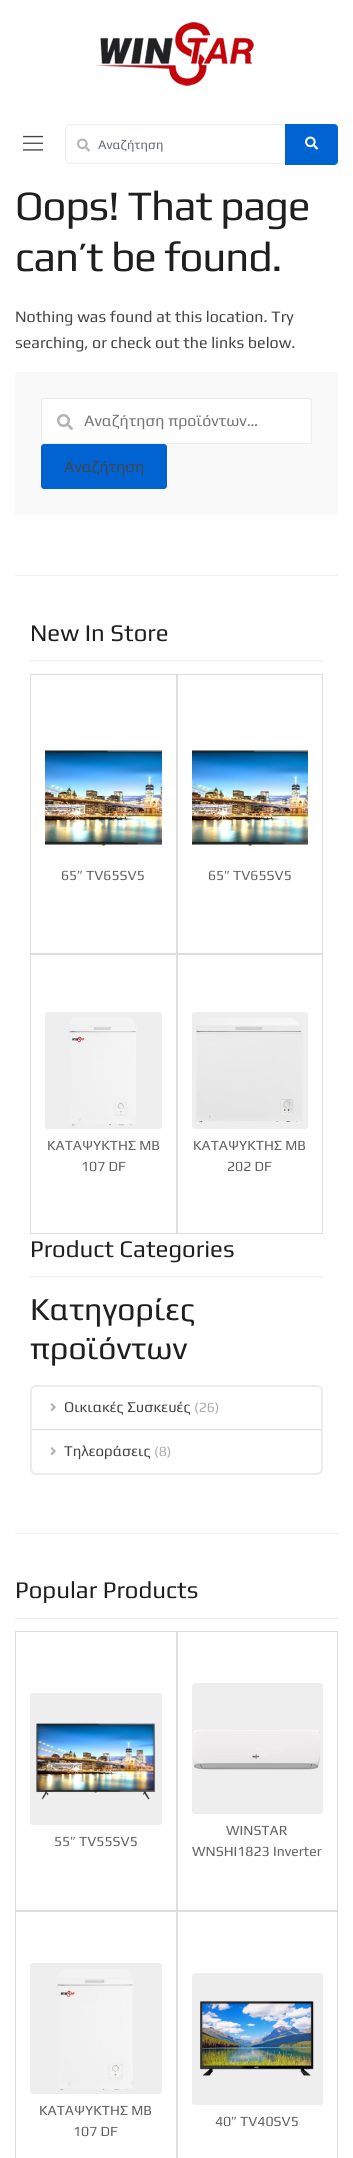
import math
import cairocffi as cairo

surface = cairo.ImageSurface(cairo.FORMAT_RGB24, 353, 2158)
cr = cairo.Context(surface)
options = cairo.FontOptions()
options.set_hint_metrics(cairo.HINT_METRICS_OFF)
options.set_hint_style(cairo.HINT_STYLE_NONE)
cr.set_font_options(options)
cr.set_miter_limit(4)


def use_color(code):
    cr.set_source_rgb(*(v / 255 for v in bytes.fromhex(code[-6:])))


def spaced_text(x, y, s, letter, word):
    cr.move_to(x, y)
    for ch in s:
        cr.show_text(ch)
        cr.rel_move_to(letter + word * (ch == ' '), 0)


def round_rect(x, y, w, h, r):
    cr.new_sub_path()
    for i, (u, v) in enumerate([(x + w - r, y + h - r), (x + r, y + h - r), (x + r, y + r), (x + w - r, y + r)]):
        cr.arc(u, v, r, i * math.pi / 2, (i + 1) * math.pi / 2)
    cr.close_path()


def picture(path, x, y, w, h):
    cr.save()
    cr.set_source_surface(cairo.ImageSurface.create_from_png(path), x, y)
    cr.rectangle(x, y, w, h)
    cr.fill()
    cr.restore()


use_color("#ffffff")
cr.paint()
picture("img1.png", 96, 22, 158, 64)
picture("img2.png", 23, 135, 20, 16)
cr.new_path()
cr.move_to(70, 124.5)
cr.line_to(283, 124.5)
cr.curve_to(284.5, 124.5, 285.5, 125.5, 285.5, 127)
cr.line_to(285.5, 161)
cr.curve_to(285.5, 162.5, 284.5, 163.5, 283, 163.5)
cr.line_to(70, 163.5)
cr.curve_to(67.5, 163.5, 65.5, 161.5, 65.5, 159)
cr.line_to(65.5, 129)
cr.curve_to(65.5, 126.5, 67.5, 124.5, 70, 124.5)
cr.close_path()
use_color("#ebebeb")
cr.set_line_width(1)
cr.stroke()
picture("img3.png", 77, 138, 13, 14)
cr.select_font_face("Play")
cr.set_font_size(13)
use_color("#636c72")
cr.move_to(98, 149)
cr.show_text("Αναζήτηση")
use_color("#0063d1")
cr.new_path()
cr.move_to(285.5, 124.5)
cr.line_to(334, 124.5)
cr.curve_to(336, 124.5, 337.5, 126, 337.5, 128)
cr.line_to(337.5, 161)
cr.curve_to(337.5, 163, 336, 164.5, 334, 164.5)
cr.line_to(285.5, 164.5)
cr.close_path()
cr.fill_preserve()
cr.stroke()
picture("img4.png", 305, 136, 14, 14)
cr.set_font_size(42)
use_color("#1f1f1f")
spaced_text(15, 220, "Oops! That page", -1, 0)
spaced_text(15, 271, "can’t be found.", -1, 0)
cr.set_font_size(16)
use_color("#444444")
cr.move_to(15, 322)
cr.show_text("Nothing was found at this location. Try")
cr.move_to(15, 348)
cr.show_text("searching, or check out the links below.")
use_color("#f9f9f9")
cr.rectangle(15, 372, 323, 143)
cr.fill()
use_color("#ffffff")
round_rect(41.5, 398.5, 270, 45, 2.5)
cr.fill_preserve()
use_color("#ebebeb")
cr.stroke()
picture("img5.png", 57, 414, 16, 16)
use_color("#757575")
cr.move_to(84, 426)
cr.show_text("Αναζήτηση προϊόντων…")
use_color("#0063d1")
round_rect(41, 444, 126, 45, 3)
cr.fill()
use_color("#43454b")
cr.move_to(64, 472)
cr.show_text("Αναζήτηση")
use_color("#f2f2f2")
cr.rectangle(15, 575, 323, 1)
cr.fill()
cr.rectangle(15, 1533, 323, 1)
cr.fill()
use_color("#ebebeb")
cr.rectangle(30, 660, 293, 1)
cr.fill()
cr.set_font_size(24)
use_color("#1f1f1f")
cr.move_to(30, 641)
cr.show_text("New In Store")
cr.rectangle(30.5, 674.5, 146, 279)
use_color("#dddddd")
cr.stroke()
picture("img6.png", 45, 749, 117, 101)
cr.set_font_size(14)
use_color("#626060")
cr.move_to(61, 880)
cr.show_text("65")
cr.select_font_face("Liberation Serif")
cr.move_to(77, 880)
cr.show_text("″")
cr.select_font_face("Play")
cr.move_to(86, 880)
cr.show_text("TV65SV5")
cr.rectangle(177.5, 674.5, 145, 279)
use_color("#dddddd")
cr.stroke()
picture("img7.png", 192, 749, 116, 101)
use_color("#626060")
cr.move_to(208, 880)
cr.show_text("65")
cr.select_font_face("Liberation Serif")
cr.move_to(224, 880)
cr.show_text("″")
cr.select_font_face("Play")
cr.move_to(233, 880)
cr.show_text("TV65SV5")
cr.rectangle(30.5, 954.5, 146, 279)
use_color("#dddddd")
cr.stroke()
picture("img8.png", 45, 1012, 117, 117)
use_color("#626060")
cr.move_to(47, 1150)
cr.show_text("ΚΑΤΑΨΥΚΤΗΣ MB")
cr.move_to(81, 1171)
cr.show_text("107 DF")
cr.rectangle(177.5, 954.5, 145, 279)
use_color("#dddddd")
cr.stroke()
picture("img9.png", 192, 1012, 116, 117)
use_color("#626060")
cr.move_to(193, 1150)
cr.show_text("ΚΑΤΑΨΥΚΤΗΣ MB")
cr.move_to(227, 1171)
cr.show_text("202 DF")
use_color("#ebebeb")
cr.rectangle(30, 1276, 293, 1)
cr.fill()
cr.set_font_size(24)
use_color("#1f1f1f")
cr.move_to(30, 1257)
cr.show_text("Product Categories")
cr.set_font_size(32)
cr.move_to(30, 1320)
cr.show_text("Κατηγορίες")
cr.move_to(30, 1359)
cr.show_text("προϊόντων")
round_rect(31, 1386, 291, 88, 5)
use_color("#ececec")
cr.set_line_width(2)
cr.stroke()
picture("img10.png", 50, 1403, 6, 9)
cr.set_font_size(15)
use_color("#444444")
cr.move_to(64, 1412)
cr.show_text("Οικιακές Συσκευές")
cr.set_font_size(14)
use_color("#acacac")
cr.move_to(194, 1412)
cr.show_text("(26)")
use_color("#dddddd")
cr.rectangle(32, 1429, 289, 1)
cr.fill()
picture("img10.png", 50, 1447, 6, 9)
cr.set_font_size(15)
use_color("#444444")
cr.move_to(64, 1456)
cr.show_text("Τηλεοράσεις")
cr.set_font_size(14)
use_color("#acacac")
cr.move_to(154, 1456)
cr.show_text("(8)")
use_color("#ebebeb")
cr.rectangle(15, 1618, 323, 1)
cr.fill()
cr.set_font_size(24)
use_color("#1f1f1f")
cr.move_to(15, 1598)
cr.show_text("Popular Products")
cr.rectangle(15.5, 1631.5, 161, 279)
use_color("#dddddd")
cr.set_line_width(1)
cr.stroke()
picture("img11.png", 30, 1693, 132, 132)
cr.set_font_size(14)
use_color("#626060")
cr.move_to(54, 1846)
cr.show_text("55")
cr.select_font_face("Liberation Serif")
cr.move_to(70, 1846)
cr.show_text("″")
cr.select_font_face("Play")
cr.move_to(79, 1846)
cr.show_text("TV55SV5")
cr.rectangle(177.5, 1631.5, 160, 279)
use_color("#dddddd")
cr.stroke()
picture("img12.png", 192, 1683, 131, 131)
use_color("#626060")
cr.move_to(226, 1835)
cr.show_text("WINSTAR")
cr.move_to(192, 1856)
cr.show_text("WNSHI1823 Inverter")
cr.rectangle(15.5, 1911.5, 161, 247)
use_color("#dddddd")
cr.stroke()
picture("img13.png", 30, 1963, 132, 131)
use_color("#626060")
cr.move_to(39, 2115)
cr.show_text("ΚΑΤΑΨΥΚΤΗΣ MB")
cr.move_to(73, 2136)
cr.show_text("107 DF")
cr.rectangle(177.5, 1911.5, 160, 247)
use_color("#dddddd")
cr.stroke()
picture("img14.png", 192, 1973, 131, 132)
use_color("#626060")
cr.move_to(215, 2126)
cr.show_text("40")
cr.select_font_face("Liberation Serif")
cr.move_to(231, 2126)
cr.show_text("″")
cr.select_font_face("Play")
cr.move_to(240, 2126)
cr.show_text("TV40SV5")
surface.write_to_png("result.png")
